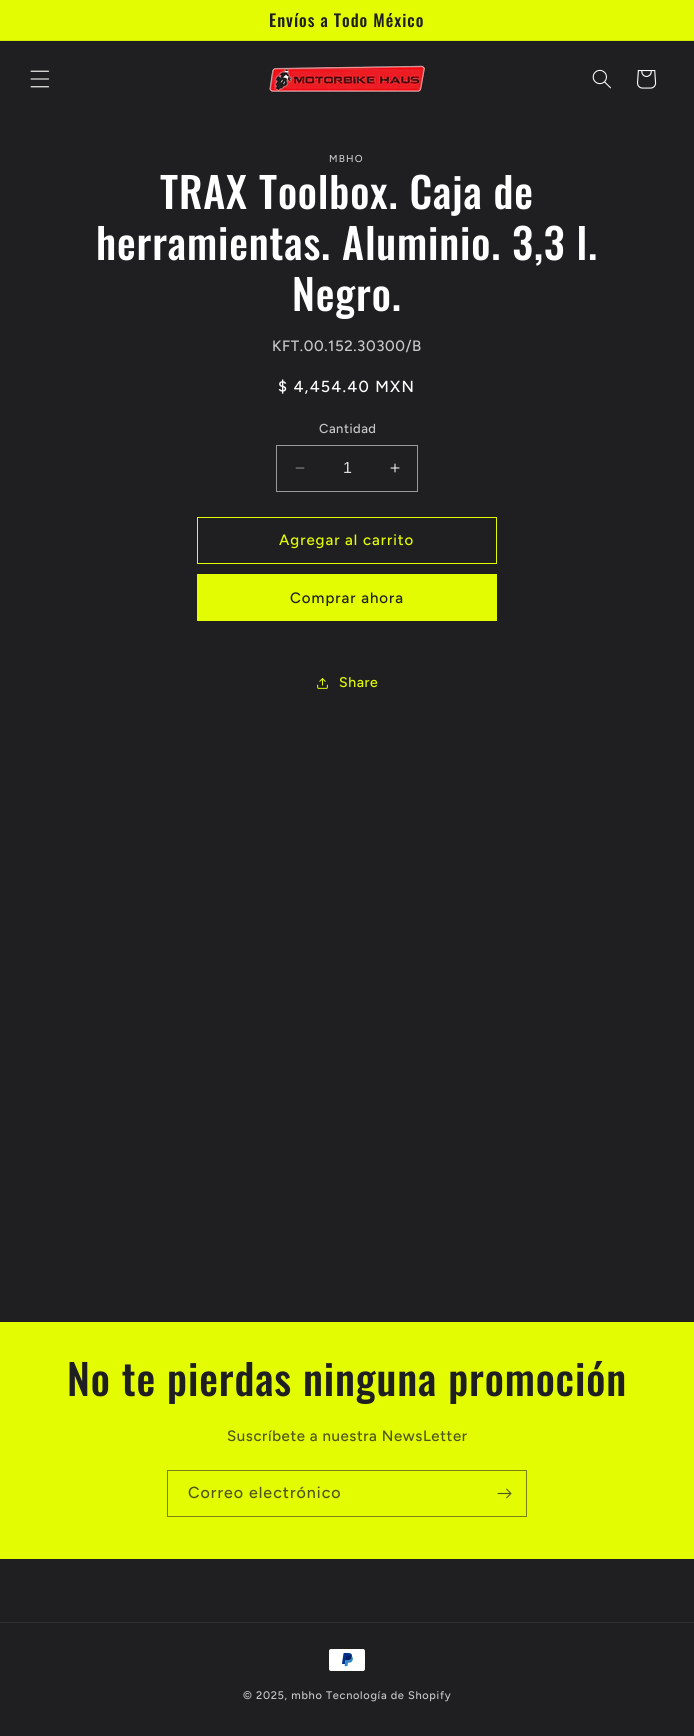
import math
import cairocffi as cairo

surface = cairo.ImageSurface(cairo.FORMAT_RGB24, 694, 1736)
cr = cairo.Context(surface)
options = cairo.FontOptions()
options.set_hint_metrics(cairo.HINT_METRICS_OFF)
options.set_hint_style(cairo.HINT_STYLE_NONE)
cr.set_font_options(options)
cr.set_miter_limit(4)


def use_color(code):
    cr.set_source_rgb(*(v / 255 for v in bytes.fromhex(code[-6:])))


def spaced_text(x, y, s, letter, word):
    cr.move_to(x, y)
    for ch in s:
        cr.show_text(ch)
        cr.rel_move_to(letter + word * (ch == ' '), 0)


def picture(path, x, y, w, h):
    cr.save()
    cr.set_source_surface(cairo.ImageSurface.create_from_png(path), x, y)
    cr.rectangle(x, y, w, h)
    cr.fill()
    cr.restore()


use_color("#1f1f21")
cr.paint()
use_color("#e3fc02")
cr.rectangle(0, 0, 694, 40)
cr.fill()
use_color("#d3ea04")
cr.rectangle(0, 40, 694, 1)
cr.fill()
cr.select_font_face("Oswald Medium")
cr.set_font_size(16.75)
use_color("#1f1f21")
spaced_text(269, 27, "Envíos a Todo México", 1, 0)
picture("img1.png", 30, 70, 20, 18)
picture("img2.png", 269, 65, 157, 28)
picture("img3.png", 592, 69, 19, 20)
picture("img4.png", 637, 70, 20, 19)
cr.select_font_face("Figtree Medium")
cr.set_font_size(10)
use_color("#c7c7c8")
spaced_text(329, 162, "MBHO", 1.25, 0)
cr.select_font_face("Oswald Medium")
cr.set_font_size(42)
use_color("#ffffff")
spaced_text(160, 209, "TRAX Toolbox. Caja de", 0.85, 0)
spaced_text(96, 260, "herramientas. Aluminio. 3,3 l.", 0.85, 0)
spaced_text(292, 311, "Negro.", 0.85, 0)
cr.select_font_face("Figtree Medium")
cr.set_font_size(15)
use_color("#c7c7c8")
spaced_text(272, 351, "KFT.00.152.30300/B", 0.6, 0)
cr.set_font_size(16)
use_color("#ffffff")
spaced_text(278, 392, "$ 4,454.40 MXN", 1.25, 0)
cr.set_font_size(13)
use_color("#c7c7c8")
spaced_text(319, 433, "Cantidad", 0.5, 0)
picture("img5.png", 295, 467, 10, 2)
picture("img6.png", 390, 463, 10, 10)
cr.rectangle(276.5, 445.5, 141, 46)
use_color("#9a9a9b")
cr.set_line_width(1)
cr.stroke()
cr.select_font_face("Liberation Sans")
cr.set_font_size(16)
use_color("#ddddde")
cr.move_to(343, 473)
cr.show_text("1")
cr.rectangle(197.5, 517.5, 299, 46)
use_color("#e3fc02")
cr.stroke()
cr.select_font_face("Figtree Medium")
cr.set_font_size(15)
spaced_text(279, 545, "Agregar al carrito", 1, 0)
cr.rectangle(197, 574, 300, 47)
cr.fill()
use_color("#1f1f21")
spaced_text(290, 603, "Comprar ahora", 1, 0)
picture("img7.png", 317, 678, 11, 11)
cr.set_font_size(14)
use_color("#e3fc02")
spaced_text(339, 687, "Share", 0.6, 0)
cr.rectangle(0, 1322, 694, 237)
cr.fill()
cr.select_font_face("Oswald Medium")
cr.set_font_size(42)
use_color("#1f1f21")
spaced_text(67, 1396, "No te pierdas ninguna promoción", 0.85, 0)
cr.select_font_face("Figtree Medium")
cr.set_font_size(15)
use_color("#505619")
spaced_text(227, 1441, "Suscríbete a nuestra NewsLetter", 0.6, 0)
cr.rectangle(167.5, 1470.5, 359, 46)
use_color("#778213")
cr.stroke()
cr.set_font_size(16)
use_color("#505619")
spaced_text(188, 1498, "Correo electrónico", 1, 0)
picture("img8.png", 497, 1488, 15, 11)
use_color("#313133")
cr.rectangle(0, 1622, 694, 1)
cr.fill()
picture("img9.png", 329, 1649, 36, 22)
cr.set_font_size(11)
use_color("#c7c7c8")
spaced_text(243, 1699, "© 2025, mbho Tecnología de Shopify", 0.7, 0)
surface.write_to_png("result.png")
